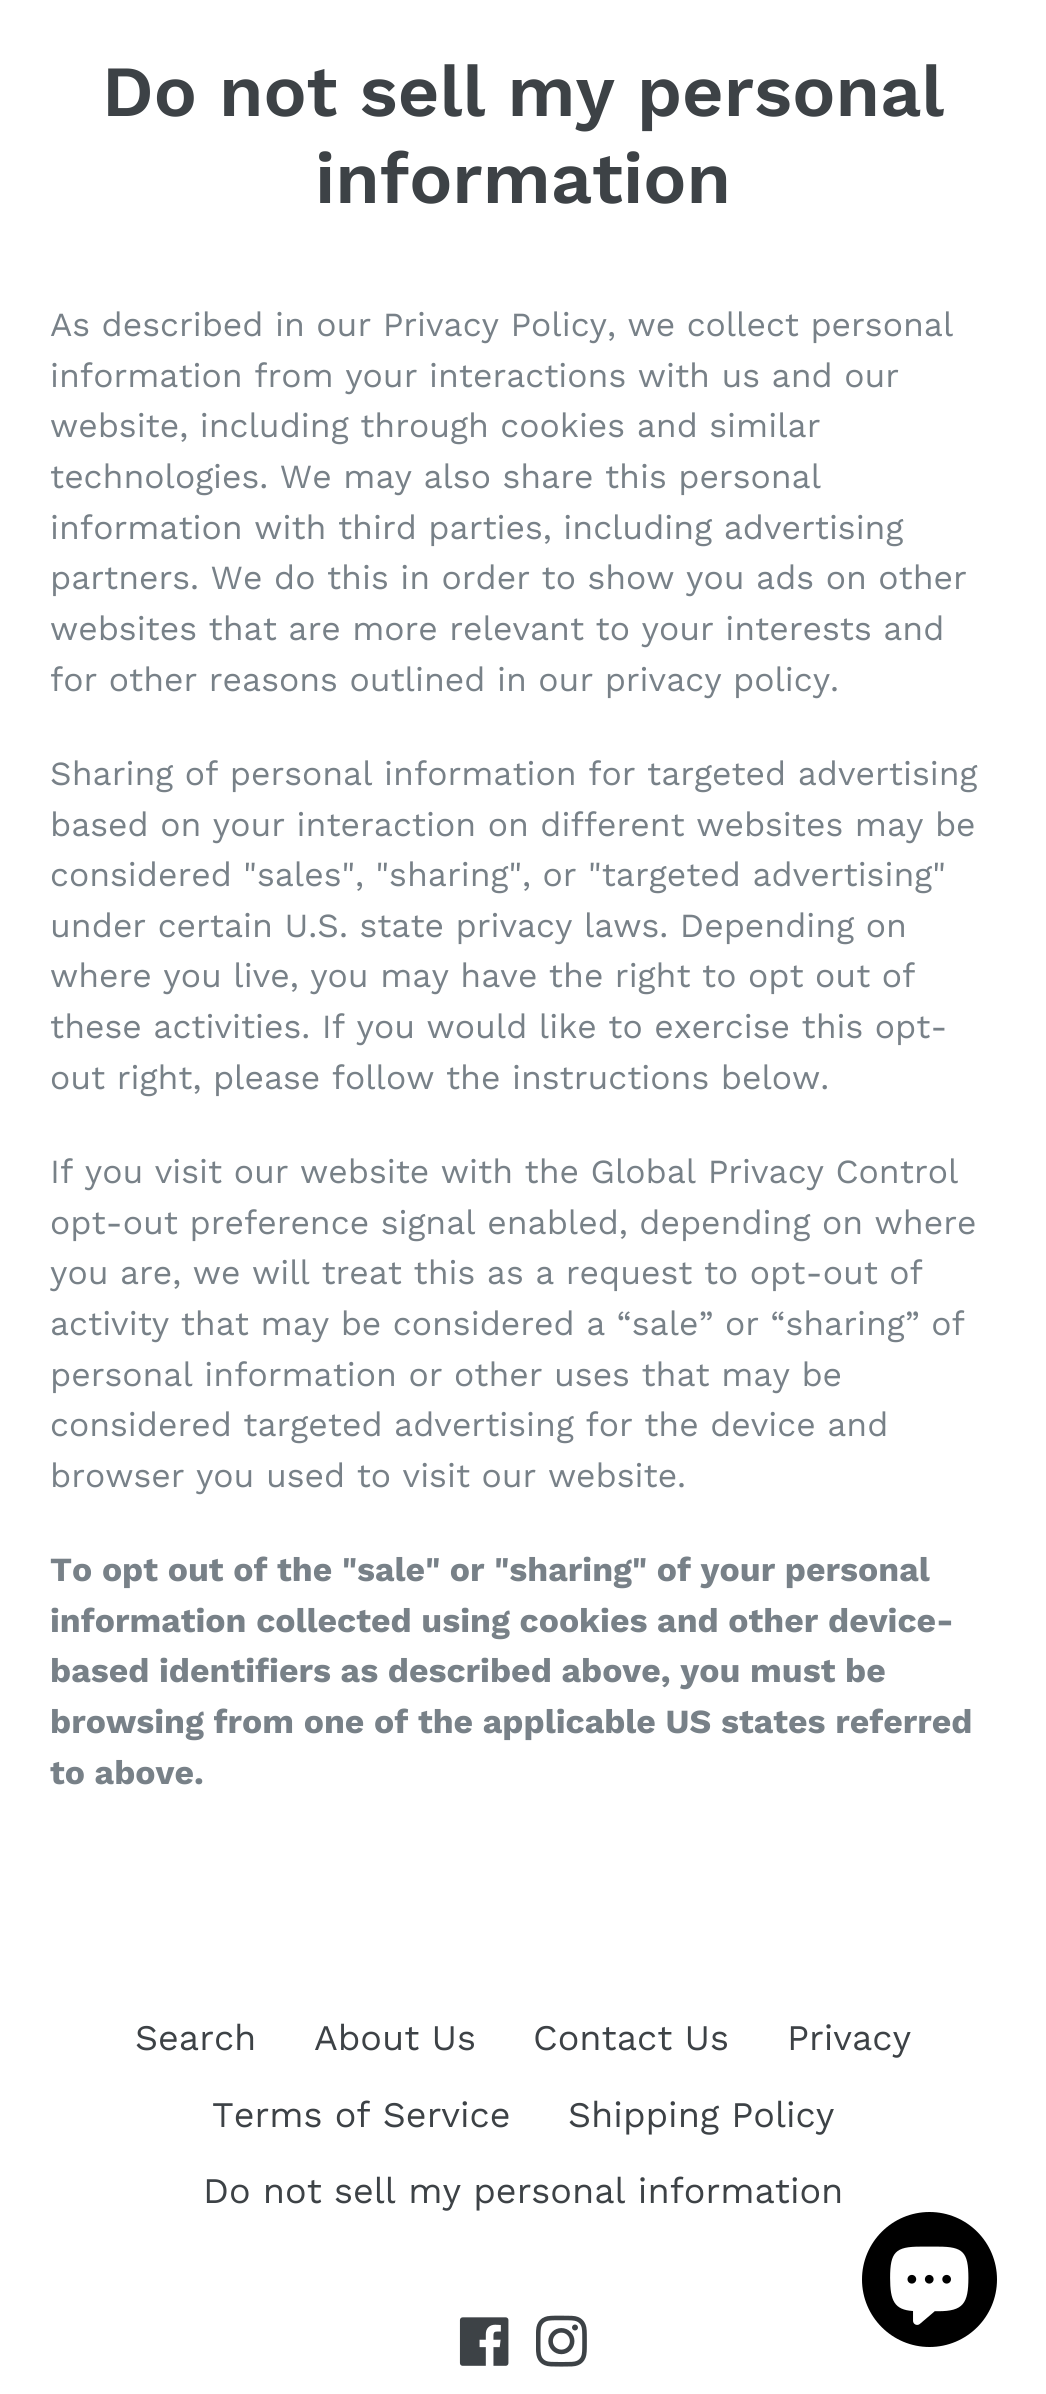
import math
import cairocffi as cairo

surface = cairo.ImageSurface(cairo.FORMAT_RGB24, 1046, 2394)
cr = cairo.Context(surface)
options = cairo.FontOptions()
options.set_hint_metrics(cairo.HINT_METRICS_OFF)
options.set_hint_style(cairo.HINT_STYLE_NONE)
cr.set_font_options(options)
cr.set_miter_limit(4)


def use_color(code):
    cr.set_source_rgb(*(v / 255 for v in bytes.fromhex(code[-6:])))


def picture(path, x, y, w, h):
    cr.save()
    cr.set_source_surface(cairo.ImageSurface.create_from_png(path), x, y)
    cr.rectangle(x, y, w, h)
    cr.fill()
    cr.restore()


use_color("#ffffff")
cr.paint()
cr.select_font_face("Work Sans SemiBold")
cr.set_font_size(72)
use_color("#3d4246")
cr.move_to(102, 116)
cr.show_text("Do not sell my personal")
cr.move_to(315, 203)
cr.show_text("information")
cr.select_font_face("Work Sans")
cr.set_font_size(33.75)
use_color("#788188")
cr.move_to(50, 336)
cr.show_text("As described in our Privacy Policy, we collect personal")
cr.move_to(50, 387)
cr.show_text("information from your interactions with us and our")
cr.move_to(50, 437)
cr.show_text("website, including through cookies and similar")
cr.move_to(50, 488)
cr.show_text("technologies. We may also share this personal")
cr.move_to(50, 539)
cr.show_text("information with third parties, including advertising")
cr.move_to(50, 589)
cr.show_text("partners. We do this in order to show you ads on other")
cr.move_to(50, 640)
cr.show_text("websites that are more relevant to your interests and")
cr.move_to(50, 691)
cr.show_text("for other reasons outlined in our privacy policy.")
cr.move_to(50, 785)
cr.show_text("Sharing of personal information for targeted advertising")
cr.move_to(50, 836)
cr.show_text("based on your interaction on different websites may be")
cr.move_to(50, 886)
cr.show_text("considered \"sales\", \"sharing\", or \"targeted advertising\"")
cr.move_to(50, 937)
cr.show_text("under certain U.S. state privacy laws. Depending on")
cr.move_to(50, 987)
cr.show_text("where you live, you may have the right to opt out of")
cr.move_to(50, 1038)
cr.show_text("these activities. If you would like to exercise this opt-")
cr.move_to(50, 1089)
cr.show_text("out right, please follow the instructions below.")
cr.move_to(50, 1183)
cr.show_text("If you visit our website with the Global Privacy Control")
cr.move_to(50, 1234)
cr.show_text("opt-out preference signal enabled, depending on where")
cr.move_to(50, 1284)
cr.show_text("you are, we will treat this as a request to opt-out of")
cr.move_to(50, 1335)
cr.show_text("activity that may be considered a “sale” or “sharing” of")
cr.move_to(50, 1386)
cr.show_text("personal information or other uses that may be")
cr.move_to(50, 1436)
cr.show_text("considered targeted advertising for the device and")
cr.move_to(50, 1487)
cr.show_text("browser you used to visit our website.")
cr.select_font_face("Work Sans", cairo.FONT_SLANT_NORMAL, cairo.FONT_WEIGHT_BOLD)
cr.move_to(50, 1581)
cr.show_text("To opt out of the \"sale\" or \"sharing\" of your personal")
cr.move_to(50, 1632)
cr.show_text("information collected using cookies and other device-")
cr.move_to(50, 1682)
cr.show_text("based identifiers as described above, you must be")
cr.move_to(50, 1733)
cr.show_text("browsing from one of the applicable US states referred")
cr.move_to(50, 1784)
cr.show_text("to above.")
cr.select_font_face("Work Sans")
cr.set_font_size(36)
use_color("#3d4246")
cr.move_to(135, 2050)
cr.show_text("Search")
cr.move_to(314, 2050)
cr.show_text("About Us")
cr.move_to(533, 2050)
cr.show_text("Contact Us")
cr.move_to(787, 2050)
cr.show_text("Privacy")
cr.move_to(212, 2127)
cr.show_text("Terms of Service")
cr.move_to(568, 2127)
cr.show_text("Shipping Policy")
cr.move_to(203, 2203)
cr.show_text("Do not sell my personal information")
picture("img1.png", 459, 2317, 50, 49)
picture("img2.png", 536, 2315, 51, 52)
use_color("#000000")
cr.arc(929.5, 2279.5, 67.5, 0, 2 * math.pi)
cr.fill()
picture("img3.png", 890, 2246, 79, 79)
surface.write_to_png("result.png")
